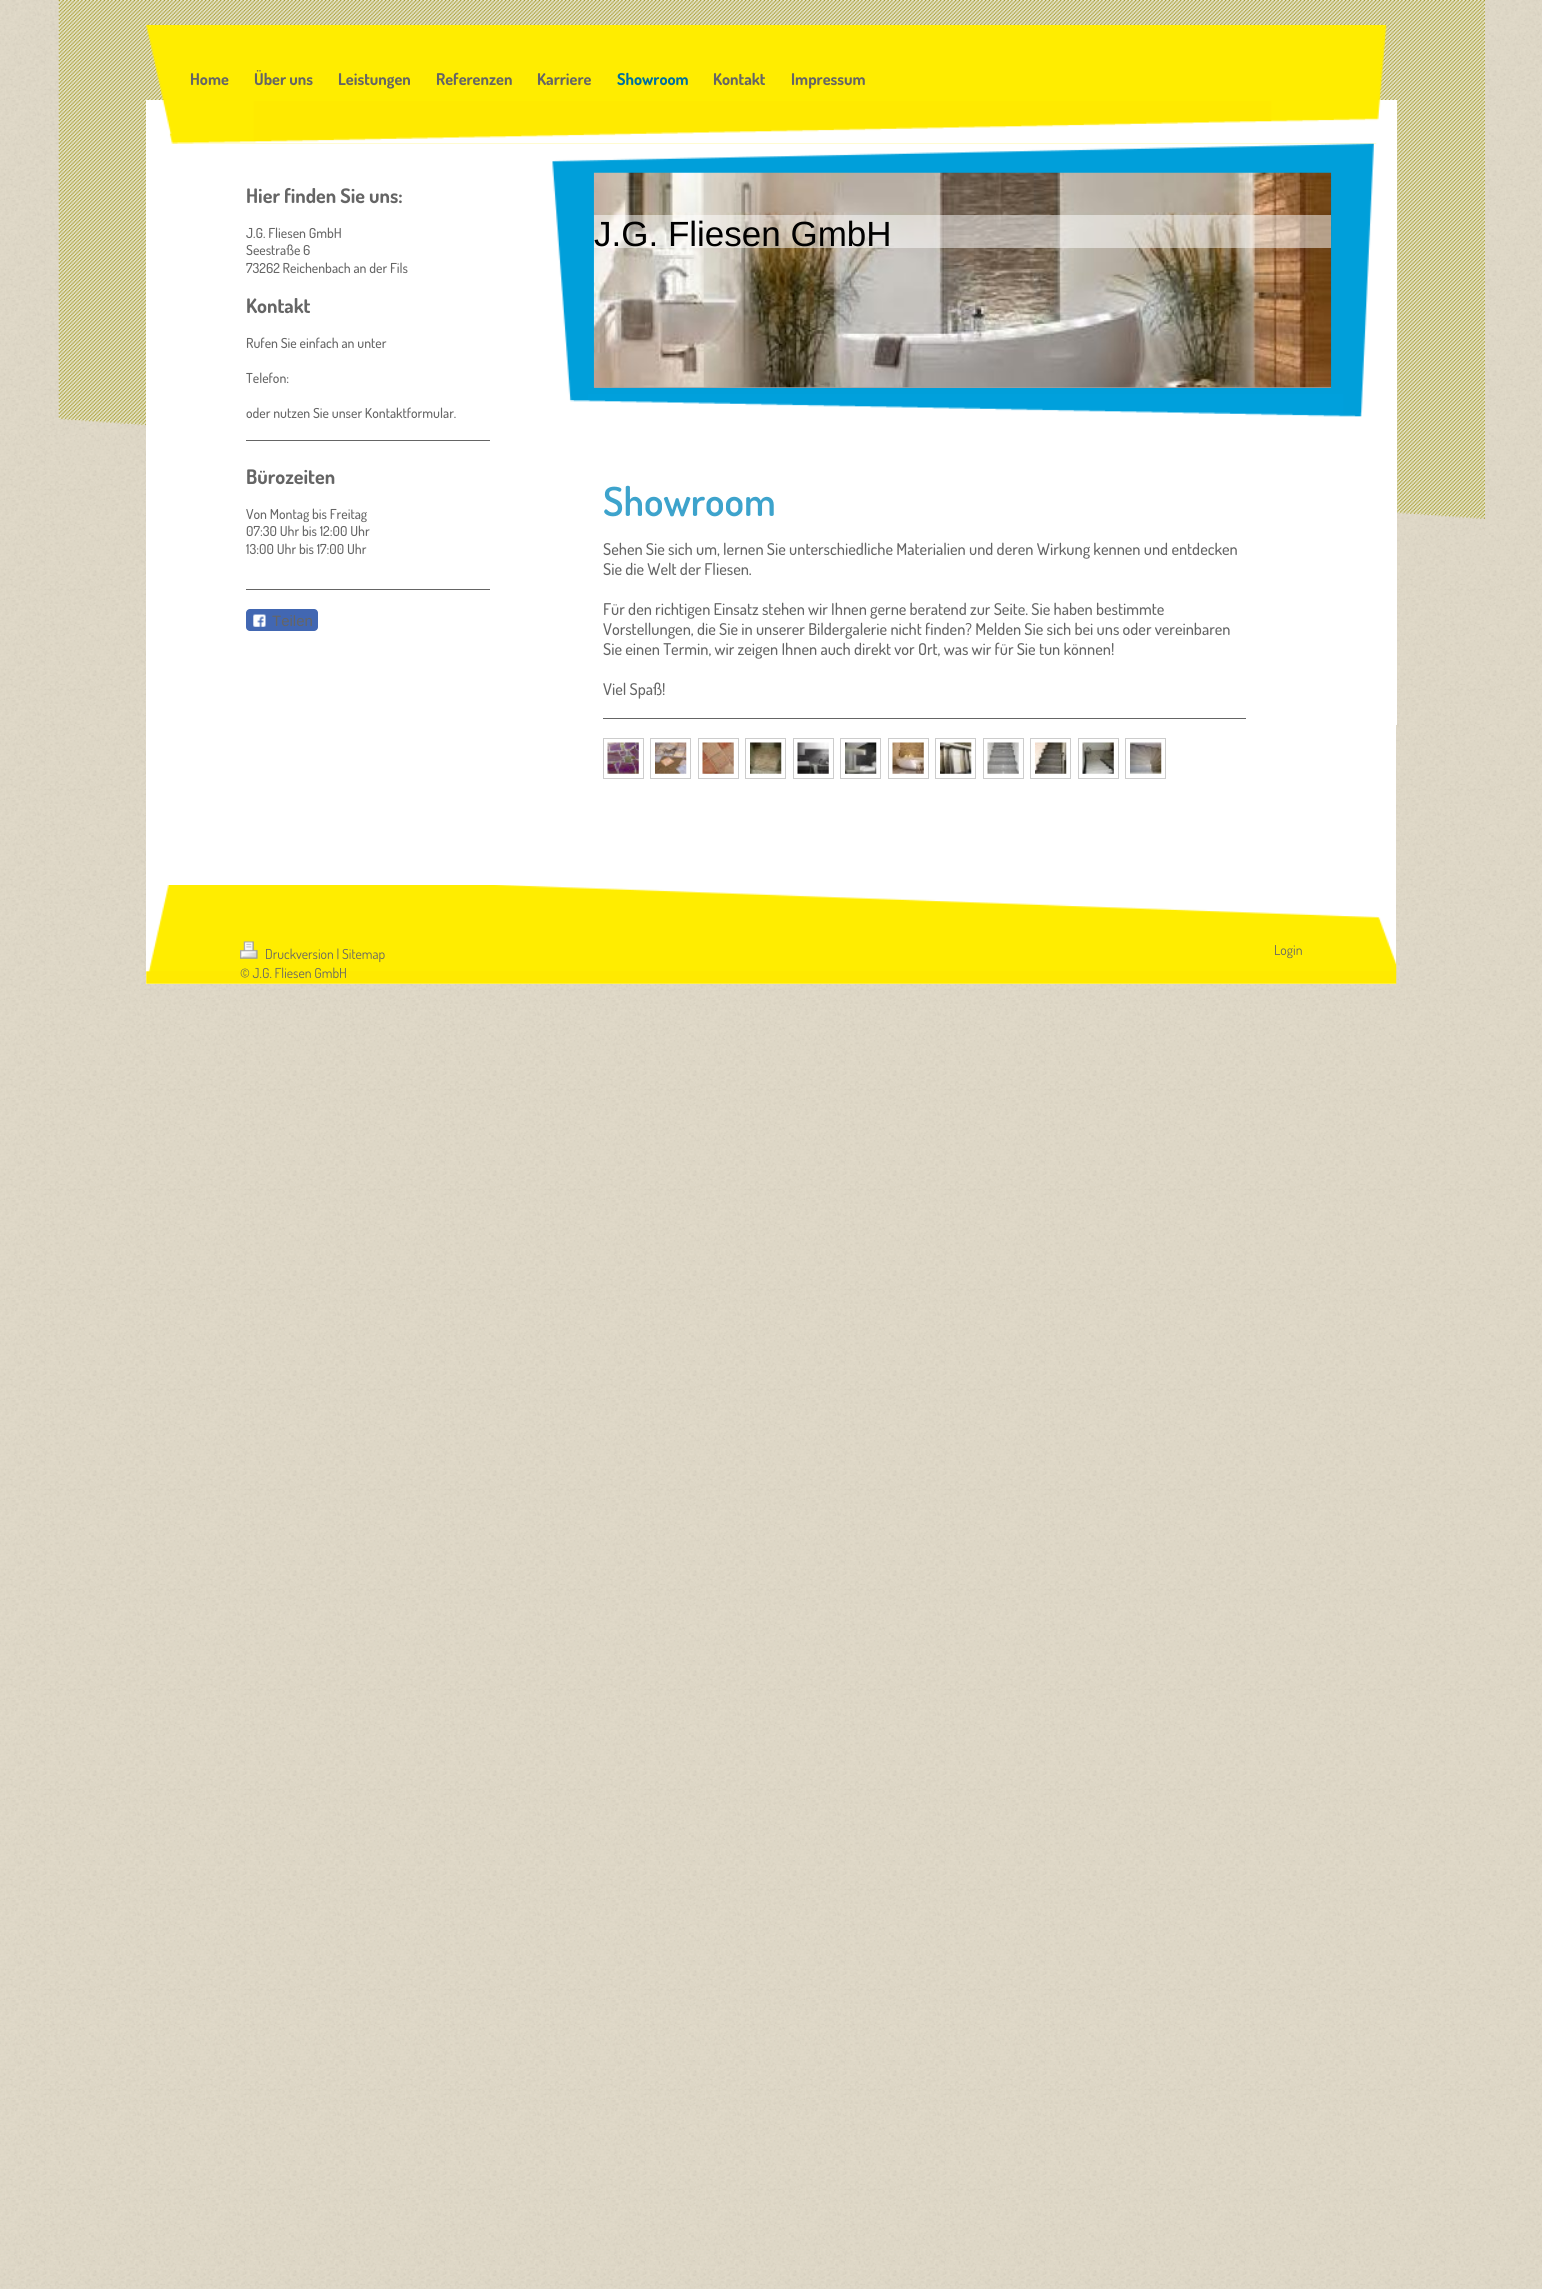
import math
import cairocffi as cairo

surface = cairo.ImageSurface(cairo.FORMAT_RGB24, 1542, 2289)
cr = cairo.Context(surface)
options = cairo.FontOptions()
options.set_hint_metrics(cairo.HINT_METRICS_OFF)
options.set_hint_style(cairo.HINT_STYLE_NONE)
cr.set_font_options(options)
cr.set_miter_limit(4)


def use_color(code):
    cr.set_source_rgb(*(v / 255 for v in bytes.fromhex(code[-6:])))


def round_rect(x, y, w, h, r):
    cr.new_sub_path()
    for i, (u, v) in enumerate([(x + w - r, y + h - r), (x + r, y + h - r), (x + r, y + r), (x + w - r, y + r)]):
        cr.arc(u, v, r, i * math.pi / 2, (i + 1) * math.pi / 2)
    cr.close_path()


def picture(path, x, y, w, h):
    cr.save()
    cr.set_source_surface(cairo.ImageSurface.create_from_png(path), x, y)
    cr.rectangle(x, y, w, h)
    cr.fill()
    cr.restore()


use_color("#e1dac9")
cr.paint()
picture("img1.png", 0, 0, 1542, 2289)
picture("img2.png", 58, 0, 1427, 519)
use_color("#ffffff")
cr.rectangle(146, 100, 1251, 625)
cr.fill()
picture("img3.png", 146, 25, 1241, 119)
cr.select_font_face("Dosis", cairo.FONT_SLANT_NORMAL, cairo.FONT_WEIGHT_BOLD)
cr.set_font_size(16.25)
use_color("#656565")
cr.move_to(190, 85)
cr.show_text("Home")
cr.move_to(254, 85)
cr.show_text("Über uns")
cr.move_to(338, 85)
cr.show_text("Leistungen")
cr.move_to(436, 85)
cr.show_text("Referenzen")
cr.move_to(537, 85)
cr.show_text("Karriere")
use_color("#006f9e")
cr.move_to(617, 85)
cr.show_text("Showroom")
use_color("#656565")
cr.move_to(713, 85)
cr.show_text("Kontakt")
cr.move_to(791, 85)
cr.show_text("Impressum")
picture("img4.png", 171, 118, 1208, 26)
use_color("#ffffff")
cr.rectangle(146, 725, 1250, 259)
cr.fill()
cr.set_font_size(20)
use_color("#656565")
cr.move_to(246, 203)
cr.show_text("Hier finden Sie uns:")
cr.select_font_face("Dosis Medium")
cr.set_font_size(13.75)
cr.move_to(246, 238)
cr.show_text("J.G. Fliesen GmbH")
cr.move_to(246, 255)
cr.show_text("Seestraße 6")
cr.move_to(246, 273)
cr.show_text("73262 Reichenbach an der Fils")
cr.select_font_face("Dosis", cairo.FONT_SLANT_NORMAL, cairo.FONT_WEIGHT_BOLD)
cr.set_font_size(20)
cr.move_to(246, 313)
cr.show_text("Kontakt")
cr.select_font_face("Dosis Medium")
cr.set_font_size(13.75)
cr.move_to(246, 348)
cr.show_text("Rufen Sie einfach an unter")
cr.move_to(246, 383)
cr.show_text("Telefon:")
cr.move_to(246, 418)
cr.show_text("oder nutzen Sie unser Kontaktformular.")
cr.rectangle(246, 440, 244, 1)
cr.fill()
cr.select_font_face("Dosis", cairo.FONT_SLANT_NORMAL, cairo.FONT_WEIGHT_BOLD)
cr.set_font_size(20)
cr.move_to(246, 484)
cr.show_text("Bürozeiten")
cr.select_font_face("Dosis Medium")
cr.set_font_size(13.75)
cr.move_to(246, 519)
cr.show_text("Von Montag bis Freitag")
cr.move_to(246, 536)
cr.show_text("07:30 Uhr bis 12:00 Uhr")
cr.move_to(246, 554)
cr.show_text("13:00 Uhr bis 17:00 Uhr")
cr.rectangle(246, 589, 244, 1)
cr.fill()
use_color("#4267b2")
round_rect(246, 609, 72, 22, 4)
cr.fill()
picture("img5.png", 253, 614, 13, 13)
cr.select_font_face("Liberation Sans")
cr.set_font_size(15)
use_color("#656565")
cr.move_to(272, 626)
cr.show_text("Teilen")
picture("img6.png", 552, 143, 822, 274)
use_color("#a0a0a0")
cr.rectangle(594, 387, 737, 1)
cr.fill()
picture("img7.png", 593, 172, 739, 216)
cr.set_source_rgba(1, 1, 1, 0.5)
cr.rectangle(594, 215, 737, 33)
cr.fill()
cr.set_font_size(35)
use_color("#000000")
cr.move_to(594, 246)
cr.show_text("J.G. Fliesen GmbH")
picture("img8.png", 569, 400, 793, 25)
cr.select_font_face("Dosis SemiBold")
cr.set_font_size(40)
use_color("#3da3cc")
cr.move_to(603, 516)
cr.show_text("Showroom")
cr.select_font_face("Dosis Medium")
cr.set_font_size(16.25)
use_color("#656565")
cr.move_to(603, 555)
cr.show_text("Sehen Sie sich um, lernen Sie unterschiedliche Materialien und deren Wirkung kennen und entdecken")
cr.move_to(603, 575)
cr.show_text("Sie die Welt der Fliesen.")
cr.move_to(603, 615)
cr.show_text("Für den richtigen Einsatz stehen wir Ihnen gerne beratend zur Seite. Sie haben bestimmte")
cr.move_to(603, 635)
cr.show_text("Vorstellungen, die Sie in unserer Bildergalerie nicht finden? Melden Sie sich bei uns oder vereinbaren")
cr.move_to(603, 655)
cr.show_text("Sie einen Termin, wir zeigen Ihnen auch direkt vor Ort, was wir für Sie tun können!")
cr.move_to(603, 695)
cr.show_text("Viel Spaß!")
cr.rectangle(603, 718, 643, 1)
cr.fill()
cr.rectangle(603.5, 738.5, 40, 40)
use_color("#cccccc")
cr.set_line_width(1)
cr.stroke()
picture("img9.png", 607, 742, 32, 32)
cr.rectangle(650.5, 738.5, 40, 40)
cr.stroke()
picture("img10.png", 655, 742, 32, 32)
cr.rectangle(698.5, 738.5, 40, 40)
cr.stroke()
picture("img11.png", 702, 742, 32, 32)
cr.rectangle(745.5, 738.5, 40, 40)
cr.stroke()
picture("img12.png", 750, 742, 32, 32)
cr.rectangle(793.5, 738.5, 40, 40)
cr.stroke()
picture("img13.png", 797, 742, 32, 32)
cr.rectangle(840.5, 738.5, 40, 40)
cr.stroke()
picture("img14.png", 845, 742, 32, 32)
cr.rectangle(888.5, 738.5, 40, 40)
cr.stroke()
picture("img15.png", 892, 742, 32, 32)
cr.rectangle(935.5, 738.5, 40, 40)
cr.stroke()
picture("img16.png", 940, 742, 32, 32)
cr.rectangle(983.5, 738.5, 40, 40)
cr.stroke()
picture("img17.png", 987, 742, 32, 32)
cr.rectangle(1030.5, 738.5, 40, 40)
cr.stroke()
picture("img18.png", 1035, 742, 32, 32)
cr.rectangle(1078.5, 738.5, 40, 40)
cr.stroke()
picture("img19.png", 1082, 742, 32, 32)
cr.rectangle(1125.5, 738.5, 40, 40)
cr.stroke()
picture("img20.png", 1130, 742, 32, 32)
picture("img21.png", 146, 885, 1251, 99)
picture("img22.png", 240, 941, 18, 18)
cr.select_font_face("Dosis")
cr.set_font_size(13.75)
use_color("#656565")
cr.move_to(265, 959)
cr.show_text("Druckversion | Sitemap")
cr.move_to(240, 978)
cr.show_text("© J.G. Fliesen GmbH")
cr.move_to(1274, 955)
cr.show_text("Login")
surface.write_to_png("result.png")
